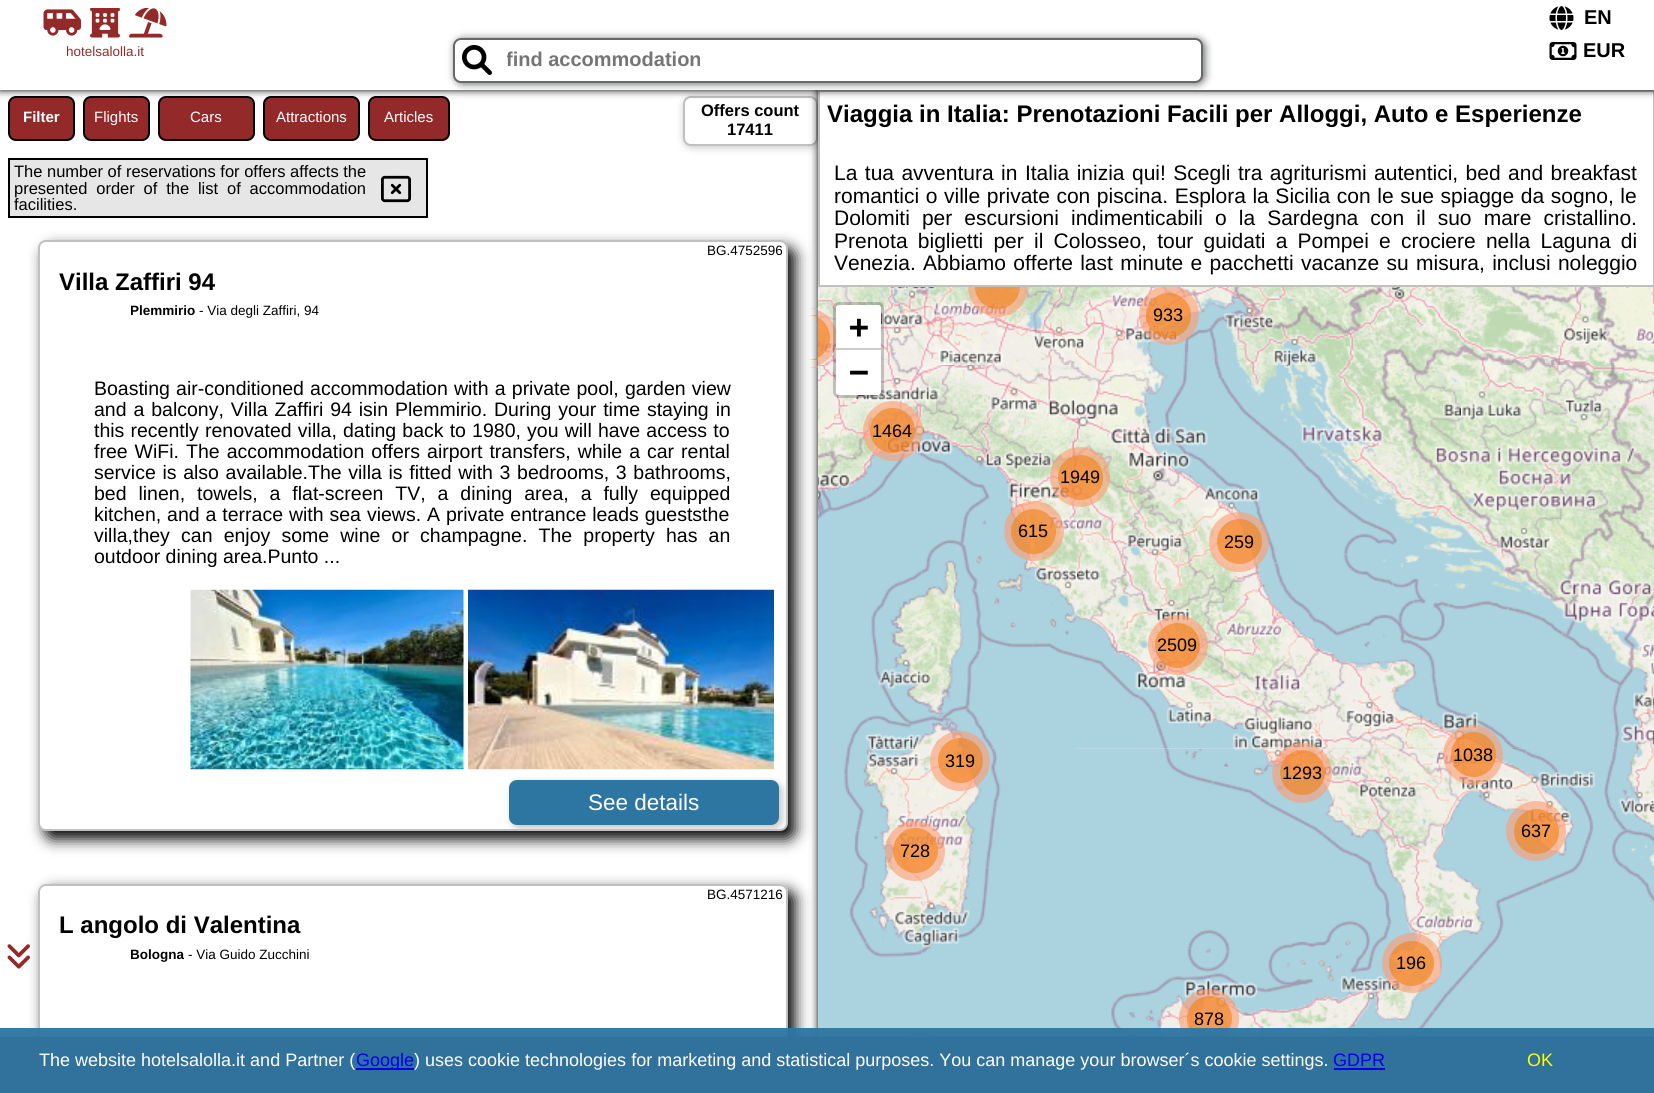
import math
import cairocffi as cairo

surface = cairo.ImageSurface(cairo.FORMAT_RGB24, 1654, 1093)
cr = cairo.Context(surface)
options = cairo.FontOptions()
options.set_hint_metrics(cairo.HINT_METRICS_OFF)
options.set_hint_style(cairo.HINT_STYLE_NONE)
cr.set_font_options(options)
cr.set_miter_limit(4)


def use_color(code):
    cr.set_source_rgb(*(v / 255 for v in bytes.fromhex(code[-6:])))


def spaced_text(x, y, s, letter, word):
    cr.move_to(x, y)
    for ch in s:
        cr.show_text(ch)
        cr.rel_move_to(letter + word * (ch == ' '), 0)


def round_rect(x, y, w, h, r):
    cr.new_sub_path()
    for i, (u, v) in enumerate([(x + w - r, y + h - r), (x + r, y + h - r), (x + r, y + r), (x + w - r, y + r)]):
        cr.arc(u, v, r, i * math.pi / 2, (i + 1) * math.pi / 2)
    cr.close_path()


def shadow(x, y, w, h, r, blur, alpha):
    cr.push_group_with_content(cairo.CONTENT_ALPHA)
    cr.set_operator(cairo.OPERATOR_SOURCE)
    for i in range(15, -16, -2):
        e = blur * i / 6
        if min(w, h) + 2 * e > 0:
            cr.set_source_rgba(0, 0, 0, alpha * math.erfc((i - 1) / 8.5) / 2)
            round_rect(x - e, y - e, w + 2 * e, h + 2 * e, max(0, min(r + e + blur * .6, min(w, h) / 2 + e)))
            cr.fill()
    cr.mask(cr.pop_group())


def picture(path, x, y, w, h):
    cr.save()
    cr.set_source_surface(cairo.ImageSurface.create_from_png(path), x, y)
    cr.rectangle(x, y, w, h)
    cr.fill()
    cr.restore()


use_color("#ffffff")
cr.paint()
use_color("#942929")
round_rect(9, 97, 65, 43, 7)
cr.fill_preserve()
use_color("#000000")
cr.stroke()
use_color("#942929")
round_rect(84, 97, 65, 43, 7)
cr.fill_preserve()
use_color("#000000")
cr.stroke()
use_color("#942929")
round_rect(159, 97, 95, 43, 7)
cr.fill_preserve()
use_color("#000000")
cr.stroke()
use_color("#942929")
round_rect(264, 97, 95, 43, 7)
cr.fill_preserve()
use_color("#000000")
cr.stroke()
use_color("#942929")
round_rect(369, 97, 80, 43, 7)
cr.fill_preserve()
use_color("#000000")
cr.stroke()
use_color("#c0c0c0")
shadow(684, 98, 135, 49, 8, 4, 1)
use_color("#ffffff")
round_rect(684, 97, 133, 48, 7)
cr.fill_preserve()
use_color("#c0c0c0")
cr.stroke()
use_color("#000000")
shadow(45, 248, 750, 591, 8, 7.5, 1)
shadow(818, 90, 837, 947, 0, 4, 1)
use_color("#ffffff")
cr.rectangle(819, 91, 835, 195)
cr.fill_preserve()
use_color("#c0c0c0")
cr.stroke()
use_color("#000000")
shadow(0, 0, 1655, 90, 0, 4, 1)
use_color("#ffffff")
cr.rectangle(0, 0, 1654, 90)
cr.fill()
picture("img1.png", 1549, 6, 25, 24)
cr.select_font_face("Liberation Sans", cairo.FONT_SLANT_NORMAL, cairo.FONT_WEIGHT_BOLD)
cr.set_font_size(20)
use_color("#000000")
cr.move_to(1584, 24)
cr.show_text("EN")
picture("img2.png", 43, 9, 38, 27)
picture("img3.png", 90, 8, 30, 30)
picture("img4.png", 129, 8, 38, 30)
cr.select_font_face("Liberation Sans")
cr.set_font_size(13.5)
use_color("#942929")
cr.move_to(66, 56)
cr.show_text("hotelsalolla.it")
use_color("#676868")
shadow(455, 39, 750, 45, 8, 4, 1)
use_color("#ffffff")
round_rect(454, 39, 748, 43, 7)
cr.fill_preserve()
use_color("#676868")
cr.stroke()
picture("img5.png", 462, 45, 30, 30)
cr.save()
cr.rectangle(507, 48, 651, 23)
cr.clip()
cr.select_font_face("Liberation Sans", cairo.FONT_SLANT_NORMAL, cairo.FONT_WEIGHT_BOLD)
cr.set_font_size(20)
use_color("#757575")
cr.move_to(506, 66)
cr.show_text("find accommodation")
cr.restore()
picture("img6.png", 1549, 42, 28, 18)
cr.select_font_face("Liberation Sans", cairo.FONT_SLANT_NORMAL, cairo.FONT_WEIGHT_BOLD)
cr.set_font_size(20)
use_color("#000000")
cr.move_to(1583, 57)
cr.show_text("EUR")
cr.set_font_size(15)
use_color("#ffffff")
cr.move_to(23, 122)
cr.show_text("Filter")
cr.select_font_face("Liberation Sans")
cr.move_to(94, 122)
cr.show_text("Flights")
cr.move_to(190, 122)
cr.show_text("Cars")
cr.move_to(276, 122)
cr.show_text("Attractions")
cr.move_to(384, 122)
cr.show_text("Articles")
cr.select_font_face("Liberation Sans", cairo.FONT_SLANT_NORMAL, cairo.FONT_WEIGHT_BOLD)
cr.set_font_size(16.5)
use_color("#000000")
cr.move_to(701, 116)
cr.show_text("Offers count")
cr.move_to(727, 135)
cr.show_text("17411")
use_color("#e6e6e6")
cr.rectangle(9, 159, 418, 58)
cr.fill_preserve()
use_color("#000000")
cr.stroke()
cr.select_font_face("Liberation Sans")
cr.move_to(14, 177)
cr.show_text("The number of reservations for offers affects the")
spaced_text(14, 194, "presented order of the list of accommodation", 0, 4.25)
picture("img7.png", 381, 175, 30, 28)
cr.move_to(14, 210)
cr.show_text("facilities.")
use_color("#ffffff")
round_rect(39, 241, 748, 589, 7)
cr.fill_preserve()
use_color("#c0c0c0")
cr.stroke()
cr.set_font_size(13.5)
use_color("#000000")
cr.move_to(707, 255)
cr.show_text("BG.4752596")
cr.select_font_face("Liberation Sans", cairo.FONT_SLANT_NORMAL, cairo.FONT_WEIGHT_BOLD)
cr.set_font_size(24)
cr.move_to(59, 290)
cr.show_text("Villa Zaffiri 94")
cr.save()
cr.rectangle(131, 303, 643, 60)
cr.clip()
cr.set_font_size(13.5)
cr.move_to(130, 315)
cr.show_text("Plemmirio")
cr.restore()
cr.select_font_face("Liberation Sans")
cr.set_font_size(13.5)
cr.move_to(199, 315)
cr.show_text("- Via degli Zaffiri, 94")
cr.set_font_size(19.5)
spaced_text(94, 395, "Boasting air-conditioned accommodation with a private pool, garden view", 0, 0.75)
spaced_text(94, 416, "and a balcony, Villa Zaffiri 94 isin Plemmirio. During your time staying in", 0, 1.5)
spaced_text(94, 437, "this recently renovated villa, dating back to 1980, you will have access to", 0, 0.75)
spaced_text(94, 458, "free WiFi. The accommodation offers airport transfers, while a car rental", 0, 1.6)
spaced_text(94, 479, "service is also available.The villa is fitted with 3 bedrooms, 3 bathrooms,", 0, 1.25)
spaced_text(94, 500, "bed linen, towels, a flat-screen TV, a dining area, a fully equipped", 0, 6.5)
spaced_text(94, 521, "kitchen, and a terrace with sea views. A private entrance leads gueststhe", 0, 0.5)
spaced_text(94, 542, "villa,they can enjoy some wine or champagne. The property has an", 0, 5.75)
cr.move_to(94, 563)
cr.show_text("outdoor dining area.Punto ...")
picture("img8.png", 190, 589, 274, 181)
picture("img9.png", 468, 589, 306, 181)
cr.save()
round_rect(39, 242, 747, 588, 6)
cr.clip()
use_color("#c0c0c0")
shadow(512, 783, 270, 45, 8, 4, 1)
cr.restore()
use_color("#2d76a2")
round_rect(509, 780, 270, 45, 8)
cr.fill()
cr.set_font_size(22.5)
use_color("#ffffff")
cr.move_to(588, 810)
cr.show_text("See details")
use_color("#000000")
shadow(45, 891, 750, 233, 8, 7.5, 1)
picture("img10.png", 7, 944, 23, 25)
use_color("#ffffff")
cr.new_path()
cr.move_to(46, 884)
cr.line_to(780, 884)
cr.curve_to(784.5, 884, 788, 887.5, 788, 892)
cr.line_to(788, 1037)
cr.line_to(38, 1037)
cr.line_to(38, 892)
cr.curve_to(38, 887.5, 41.5, 884, 46, 884)
cr.close_path()
cr.fill()
round_rect(39, 885, 748, 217, 7)
use_color("#c0c0c0")
cr.stroke()
cr.set_font_size(13.5)
use_color("#000000")
cr.move_to(707, 899)
cr.show_text("BG.4571216")
cr.select_font_face("Liberation Sans", cairo.FONT_SLANT_NORMAL, cairo.FONT_WEIGHT_BOLD)
cr.set_font_size(24)
cr.move_to(59, 933)
cr.show_text("L angolo di Valentina")
cr.save()
cr.rectangle(131, 947, 643, 60)
cr.clip()
cr.set_font_size(13.5)
cr.move_to(130, 959)
cr.show_text("Bologna")
cr.restore()
cr.select_font_face("Liberation Sans")
cr.set_font_size(13.5)
cr.move_to(188, 959)
cr.show_text("- Via Guido Zucchini")
cr.select_font_face("Liberation Sans", cairo.FONT_SLANT_NORMAL, cairo.FONT_WEIGHT_BOLD)
cr.set_font_size(24)
cr.move_to(827, 122)
cr.show_text("Viaggia in Italia: Prenotazioni Facili per Alloggi, Auto e Esperienze")
cr.select_font_face("Liberation Sans")
cr.set_font_size(21)
spaced_text(834, 180, "La tua avventura in Italia inizia qui! Scegli tra agriturismi autentici, bed and breakfast", 0, 1.6)
spaced_text(834, 203, "romantici o ville private con piscina. Esplora la Sicilia con le sue spiagge da sogno, le", 0, 0.75)
spaced_text(834, 225, "Dolomiti per escursioni indimenticabili o la Sardegna con il suo mare cristallino.", 0, 6.25)
spaced_text(834, 248, "Prenota biglietti per il Colosseo, tour guidati a Pompei e crociere nella Laguna di", 0, 4.4)
spaced_text(834, 270, "Venezia. Abbiamo offerte last minute e pacchetti vacanze su misura, inclusi noleggio", 0, 1.5)
use_color("#dddddd")
cr.rectangle(1077, 748, 384, 1)
cr.fill()
picture("img11.png", 818, 287, 259, 78)
picture("img14.png", 818, 365, 259, 384)
cr.set_source_rgba(0.992, 0.612, 0.451, 0.6)
cr.new_path()
cr.move_to(818, 308)
cr.line_to(807, 308)
cr.curve_to(823.5, 308, 837, 321.5, 837, 338)
cr.curve_to(837, 354.5, 823.5, 368, 807, 368)
cr.line_to(818, 368)
cr.close_path()
cr.fill()
round_rect(834.5, 303.5, 48, 93, 4.5)
cr.set_source_rgba(0, 0, 0, 0.2)
cr.set_line_width(3)
cr.stroke()
use_color("#ffffff")
cr.new_path()
cr.move_to(839, 305)
cr.line_to(878, 305)
cr.curve_to(879.5, 305, 881, 306.5, 881, 308)
cr.line_to(881, 350)
cr.line_to(836, 350)
cr.line_to(836, 308)
cr.curve_to(836, 306.5, 837.5, 305, 839, 305)
cr.close_path()
cr.fill()
use_color("#cccccc")
cr.rectangle(836, 348, 45, 2)
cr.fill()
cr.select_font_face("DejaVu Sans Mono", cairo.FONT_SLANT_NORMAL, cairo.FONT_WEIGHT_BOLD)
cr.set_font_size(33)
use_color("#000000")
cr.move_to(849, 338)
cr.show_text("+")
use_color("#ffffff")
cr.new_path()
cr.move_to(836, 350)
cr.line_to(881, 350)
cr.line_to(881, 392)
cr.curve_to(881, 393.5, 879.5, 395, 878, 395)
cr.line_to(839, 395)
cr.curve_to(837.5, 395, 836, 393.5, 836, 392)
cr.close_path()
cr.fill()
use_color("#000000")
cr.move_to(849, 383)
cr.show_text("−")
picture("img12.png", 1077, 287, 384, 78)
picture("img13.png", 1461, 287, 193, 78)
picture("img15.png", 1077, 365, 384, 384)
picture("img16.png", 1461, 365, 193, 384)
picture("img17.png", 818, 749, 259, 288)
picture("img18.png", 1077, 749, 384, 288)
picture("img19.png", 1461, 749, 193, 288)
cr.set_source_rgba(0.992, 0.612, 0.451, 0.6)
cr.new_path()
cr.move_to(968, 287)
cr.line_to(1028, 287)
cr.curve_to(1028, 303.5, 1014.5, 317, 998, 317)
cr.curve_to(981.5, 317, 968, 303.5, 968, 287)
cr.close_path()
cr.fill()
cr.set_source_rgba(0.945, 0.502, 0.09, 0.6)
cr.new_path()
cr.move_to(975, 287)
cr.line_to(1020, 287)
cr.line_to(1020, 286.5)
cr.curve_to(1020, 299, 1010, 309, 997.5, 309)
cr.curve_to(985, 309, 975, 299, 975, 286.5)
cr.close_path()
cr.fill()
cr.new_path()
cr.move_to(818, 315)
cr.line_to(807.5, 315)
cr.curve_to(820, 315, 830, 325, 830, 337.5)
cr.curve_to(830, 350, 820, 360, 807.5, 360)
cr.line_to(818, 360)
cr.close_path()
cr.fill()
cr.save()
cr.rectangle(818, 287, 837, 786)
cr.clip()
cr.set_source_rgba(0.992, 0.612, 0.451, 0.6)
cr.arc(1169, 315, 30, 0, 2 * math.pi)
cr.fill()
cr.restore()
cr.arc(1168.5, 315.5, 22.5, 0, 2 * math.pi)
cr.fill()
cr.select_font_face("Liberation Sans")
cr.set_font_size(18)
use_color("#000000")
cr.move_to(1153, 321)
cr.show_text("933")
cr.set_source_rgba(0.992, 0.612, 0.451, 0.6)
cr.new_path()
cr.arc(893, 431, 30, 0, 2 * math.pi)
cr.fill()
cr.set_source_rgba(0.945, 0.502, 0.09, 0.6)
cr.arc(892.5, 430.5, 22.5, 0, 2 * math.pi)
cr.fill()
use_color("#000000")
cr.move_to(872, 437)
cr.show_text("1464")
cr.set_source_rgba(0.992, 0.612, 0.451, 0.6)
cr.new_path()
cr.arc(1080, 477, 30, 0, 2 * math.pi)
cr.fill()
cr.set_source_rgba(0.945, 0.502, 0.09, 0.6)
cr.arc(1080.5, 477.5, 22.5, 0, 2 * math.pi)
cr.fill()
use_color("#000000")
cr.move_to(1060, 483)
cr.show_text("1949")
cr.set_source_rgba(0.992, 0.612, 0.451, 0.6)
cr.new_path()
cr.arc(1034, 531, 30, 0, 2 * math.pi)
cr.fill()
cr.set_source_rgba(0.945, 0.502, 0.09, 0.6)
cr.arc(1033.5, 531.5, 22.5, 0, 2 * math.pi)
cr.fill()
use_color("#000000")
cr.move_to(1018, 537)
cr.show_text("615")
cr.set_source_rgba(0.992, 0.612, 0.451, 0.6)
cr.new_path()
cr.arc(1239, 542, 30, 0, 2 * math.pi)
cr.fill()
cr.set_source_rgba(0.945, 0.502, 0.09, 0.6)
cr.arc(1239.5, 541.5, 22.5, 0, 2 * math.pi)
cr.fill()
use_color("#000000")
cr.move_to(1224, 548)
cr.show_text("259")
cr.set_source_rgba(0.992, 0.612, 0.451, 0.6)
cr.new_path()
cr.arc(1178, 645, 30, 0, 2 * math.pi)
cr.fill()
cr.set_source_rgba(0.945, 0.502, 0.09, 0.6)
cr.arc(1177.5, 645.5, 22.5, 0, 2 * math.pi)
cr.fill()
use_color("#000000")
cr.move_to(1157, 651)
cr.show_text("2509")
cr.set_source_rgba(0.992, 0.612, 0.451, 0.6)
cr.new_path()
cr.arc(960, 761, 30, 0, 2 * math.pi)
cr.fill()
cr.set_source_rgba(0.945, 0.502, 0.09, 0.6)
cr.arc(960.5, 760.5, 22.5, 0, 2 * math.pi)
cr.fill()
use_color("#000000")
cr.move_to(945, 767)
cr.show_text("319")
cr.set_source_rgba(0.992, 0.612, 0.451, 0.6)
cr.new_path()
cr.arc(1473, 755, 30, 0, 2 * math.pi)
cr.fill()
cr.set_source_rgba(0.945, 0.502, 0.09, 0.6)
cr.arc(1473.5, 754.5, 22.5, 0, 2 * math.pi)
cr.fill()
use_color("#000000")
cr.move_to(1453, 761)
cr.show_text("1038")
cr.set_source_rgba(0.992, 0.612, 0.451, 0.6)
cr.new_path()
cr.arc(1302, 773, 30, 0, 2 * math.pi)
cr.fill()
cr.set_source_rgba(0.945, 0.502, 0.09, 0.6)
cr.arc(1302.5, 772.5, 22.5, 0, 2 * math.pi)
cr.fill()
use_color("#000000")
cr.move_to(1282, 779)
cr.show_text("1293")
cr.set_source_rgba(0.992, 0.612, 0.451, 0.6)
cr.new_path()
cr.arc(1536, 831, 30, 0, 2 * math.pi)
cr.fill()
cr.set_source_rgba(0.945, 0.502, 0.09, 0.6)
cr.arc(1536.5, 831.5, 22.5, 0, 2 * math.pi)
cr.fill()
use_color("#000000")
cr.move_to(1521, 837)
cr.show_text("637")
cr.set_source_rgba(0.992, 0.612, 0.451, 0.6)
cr.new_path()
cr.arc(915, 851, 30, 0, 2 * math.pi)
cr.fill()
cr.set_source_rgba(0.945, 0.502, 0.09, 0.6)
cr.arc(915.5, 850.5, 22.5, 0, 2 * math.pi)
cr.fill()
use_color("#000000")
cr.move_to(900, 857)
cr.show_text("728")
cr.set_source_rgba(0.992, 0.612, 0.451, 0.6)
cr.new_path()
cr.arc(1412, 963, 30, 0, 2 * math.pi)
cr.fill()
cr.set_source_rgba(0.945, 0.502, 0.09, 0.6)
cr.arc(1411.5, 963.5, 22.5, 0, 2 * math.pi)
cr.fill()
use_color("#000000")
cr.move_to(1396, 969)
cr.show_text("196")
cr.set_source_rgba(0.992, 0.612, 0.451, 0.6)
cr.new_path()
cr.arc(1209, 1019, 30, 0, 2 * math.pi)
cr.fill()
cr.set_source_rgba(0.945, 0.502, 0.09, 0.6)
cr.arc(1209.5, 1018.5, 22.5, 0, 2 * math.pi)
cr.fill()
use_color("#000000")
cr.move_to(1194, 1025)
cr.show_text("878")
cr.set_source_rgba(0.992, 0.612, 0.451, 0.6)
cr.new_path()
cr.move_to(1337, 1031)
cr.curve_to(1353.5, 1031, 1367, 1044.5, 1367, 1061)
cr.line_to(1367, 1037)
cr.line_to(1307, 1037)
cr.line_to(1307, 1061)
cr.curve_to(1307, 1044.5, 1320.5, 1031, 1337, 1031)
cr.close_path()
cr.fill()
use_color("#942929")
shadow(0, 1037, 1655, 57, 0, 1.5, 1)
use_color("#942929")
cr.rectangle(0, 1037, 1654, 56)
cr.fill()
cr.set_source_rgba(0.176, 0.463, 0.635, 0.95)
cr.rectangle(0, 1028, 1654, 65)
cr.fill()
use_color("#ffffff")
cr.move_to(39, 1066)
cr.show_text("The website hotelsalolla.it and Partner (")
use_color("#0000ee")
cr.rectangle(356, 1068, 58, 2)
cr.fill()
cr.move_to(356, 1066)
cr.show_text("Google")
use_color("#ffffff")
cr.move_to(414, 1066)
cr.show_text(") uses cookie technologies for marketing and statistical purposes. You can manage your browser´s cookie settings.")
use_color("#0000ee")
cr.move_to(1333, 1066)
cr.show_text("GDPR")
cr.rectangle(1334, 1068, 51, 2)
cr.fill()
use_color("#ffff00")
cr.move_to(1527, 1066)
cr.show_text("OK")
surface.write_to_png("result.png")
